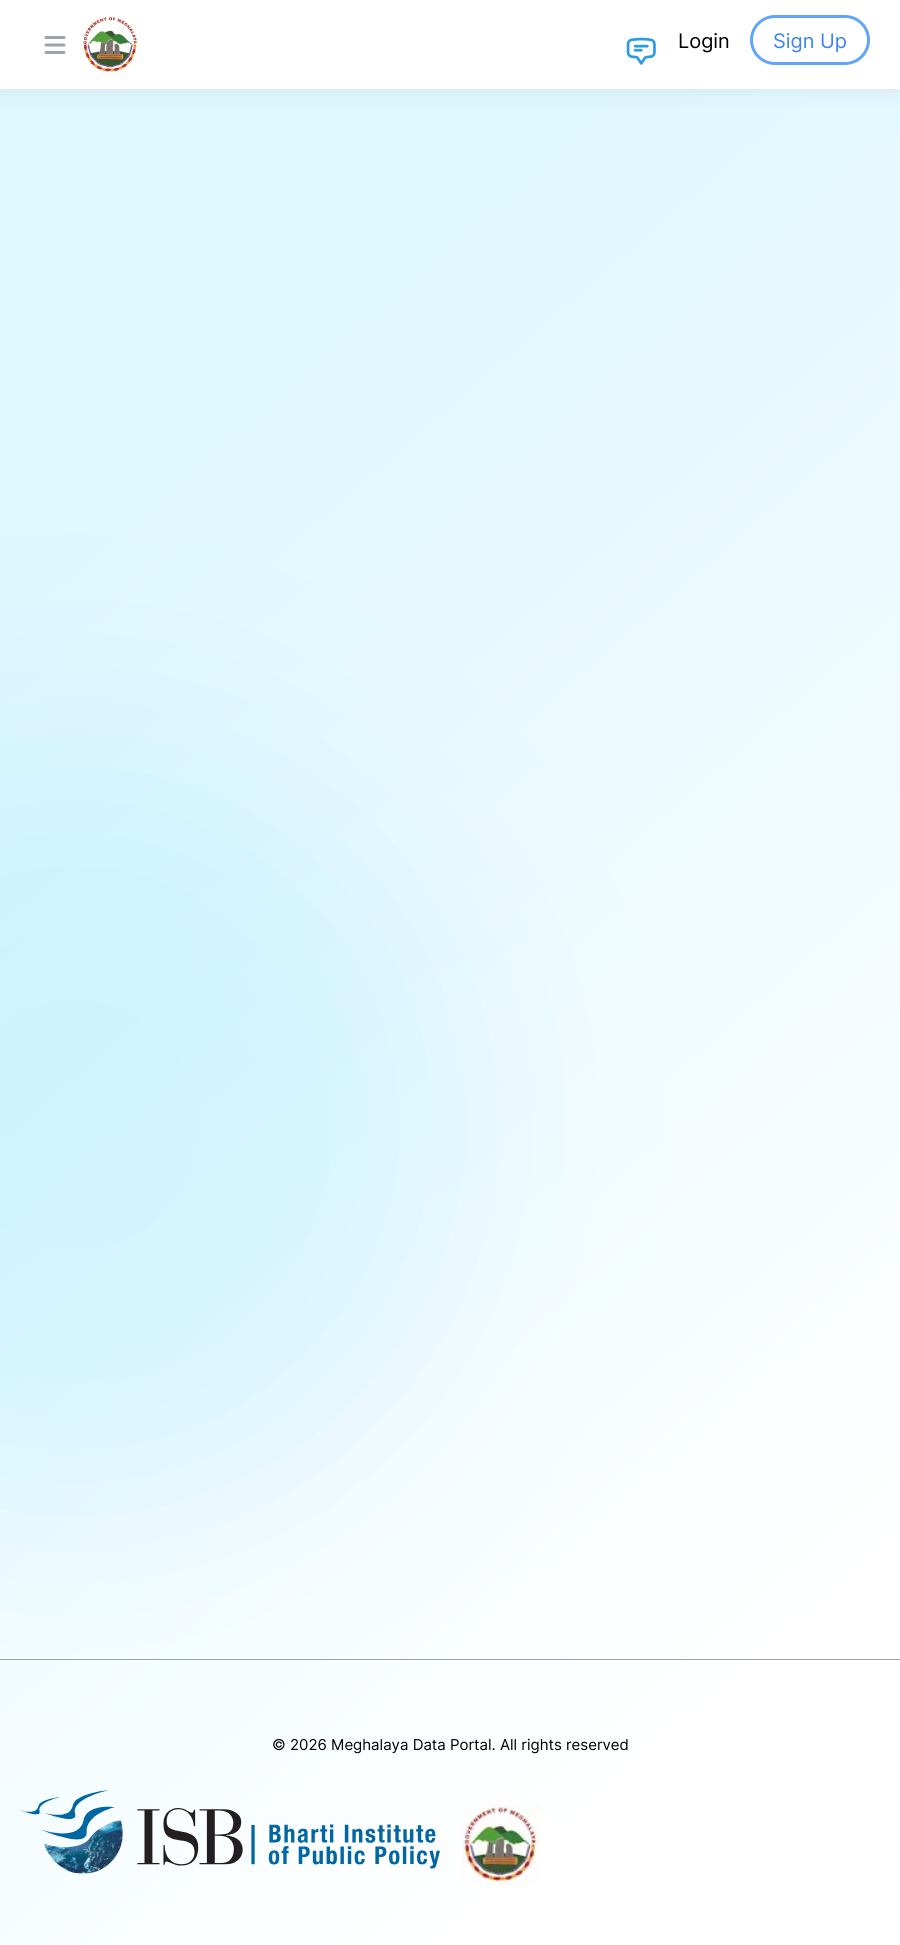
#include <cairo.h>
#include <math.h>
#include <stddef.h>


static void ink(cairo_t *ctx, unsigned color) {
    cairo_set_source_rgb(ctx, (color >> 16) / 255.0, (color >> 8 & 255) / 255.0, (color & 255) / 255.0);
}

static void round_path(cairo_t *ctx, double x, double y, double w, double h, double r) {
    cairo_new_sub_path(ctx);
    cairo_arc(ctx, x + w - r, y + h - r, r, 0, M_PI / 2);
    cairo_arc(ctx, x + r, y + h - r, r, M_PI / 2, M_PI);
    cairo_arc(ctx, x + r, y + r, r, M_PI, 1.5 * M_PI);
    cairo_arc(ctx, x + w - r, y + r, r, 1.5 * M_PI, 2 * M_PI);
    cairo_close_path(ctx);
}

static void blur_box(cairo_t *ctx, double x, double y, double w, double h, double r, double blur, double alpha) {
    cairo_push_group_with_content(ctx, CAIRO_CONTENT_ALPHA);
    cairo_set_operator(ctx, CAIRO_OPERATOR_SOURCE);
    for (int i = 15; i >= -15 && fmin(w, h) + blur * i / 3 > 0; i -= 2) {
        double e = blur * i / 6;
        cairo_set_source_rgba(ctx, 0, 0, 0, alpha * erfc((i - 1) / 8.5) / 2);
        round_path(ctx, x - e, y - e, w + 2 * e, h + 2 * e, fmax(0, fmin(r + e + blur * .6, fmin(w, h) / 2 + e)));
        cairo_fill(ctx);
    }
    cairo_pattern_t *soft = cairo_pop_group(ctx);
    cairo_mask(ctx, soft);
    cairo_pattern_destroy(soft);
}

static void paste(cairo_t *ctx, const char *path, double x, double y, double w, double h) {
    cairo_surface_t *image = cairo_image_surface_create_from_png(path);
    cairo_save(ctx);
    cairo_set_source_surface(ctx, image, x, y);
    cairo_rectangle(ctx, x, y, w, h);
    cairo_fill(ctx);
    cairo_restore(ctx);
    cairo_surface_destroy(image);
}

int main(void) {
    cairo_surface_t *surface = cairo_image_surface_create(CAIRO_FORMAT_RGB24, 900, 1945);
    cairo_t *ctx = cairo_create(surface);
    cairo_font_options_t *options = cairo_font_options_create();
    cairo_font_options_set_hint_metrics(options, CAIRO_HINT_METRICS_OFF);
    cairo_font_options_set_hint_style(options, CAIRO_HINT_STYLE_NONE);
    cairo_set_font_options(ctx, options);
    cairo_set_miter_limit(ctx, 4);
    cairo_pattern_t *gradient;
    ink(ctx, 0xFFFFFF);
    cairo_paint(ctx);
    gradient = cairo_pattern_create_linear(-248, 216, 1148, 1818);
    cairo_pattern_add_color_stop_rgba(gradient, 0.22, 0.875, 0.969, 1, 1);
    cairo_pattern_add_color_stop_rgba(gradient, 0.83, 1, 1, 1, 1);
    cairo_set_source(ctx, gradient);
    cairo_pattern_destroy(gradient);
    cairo_rectangle(ctx, 0, 89, 900, 1856);
    cairo_fill(ctx);
    ink(ctx, 0x000000);
    blur_box(ctx, 0, 5, 900, 89, 0, 9.5, 0.05);
    ink(ctx, 0xFFFFFF);
    cairo_rectangle(ctx, 0, 0, 900, 89);
    cairo_fill(ctx);
    paste(ctx, "media/1.png", 44, 36, 22, 18);
    paste(ctx, "media/2.png", 83, 17, 54, 55);
    paste(ctx, "media/3.png", 626, 37, 30, 28);
    cairo_select_font_face(ctx, "Inter", CAIRO_FONT_SLANT_NORMAL, CAIRO_FONT_WEIGHT_NORMAL);
    cairo_set_font_size(ctx, 20);
    ink(ctx, 0x000000);
    cairo_move_to(ctx, 678, 48);
    cairo_show_text(ctx, "Login");
    round_path(ctx, 751.5, 16.5, 117, 47, 23.5);
    ink(ctx, 0x60A5FA);
    cairo_set_line_width(ctx, 3);
    cairo_stroke(ctx);
    ink(ctx, 0x3B82F6);
    cairo_move_to(ctx, 773, 48);
    cairo_show_text(ctx, "Sign Up");
    ink(ctx, 0x6FD9FF);
    blur_box(ctx, -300, 750, 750, 750, 375, 100, 0.2);
    ink(ctx, 0x9CA3AF);
    cairo_rectangle(ctx, 0, 1659, 900, 1);
    cairo_fill(ctx);
    cairo_set_font_size(ctx, 15);
    ink(ctx, 0x000000);
    cairo_move_to(ctx, 272, 1750);
    cairo_show_text(ctx, "© 2026 Meghalaya Data Portal. All rights reserved");
    paste(ctx, "media/4.png", 20, 1790, 420, 84);
    paste(ctx, "media/5.png", 460, 1805, 80, 79);
    cairo_surface_write_to_png(surface, "image.png");
    cairo_font_options_destroy(options);
    cairo_destroy(ctx);
    cairo_surface_destroy(surface);
    return 0;
}
